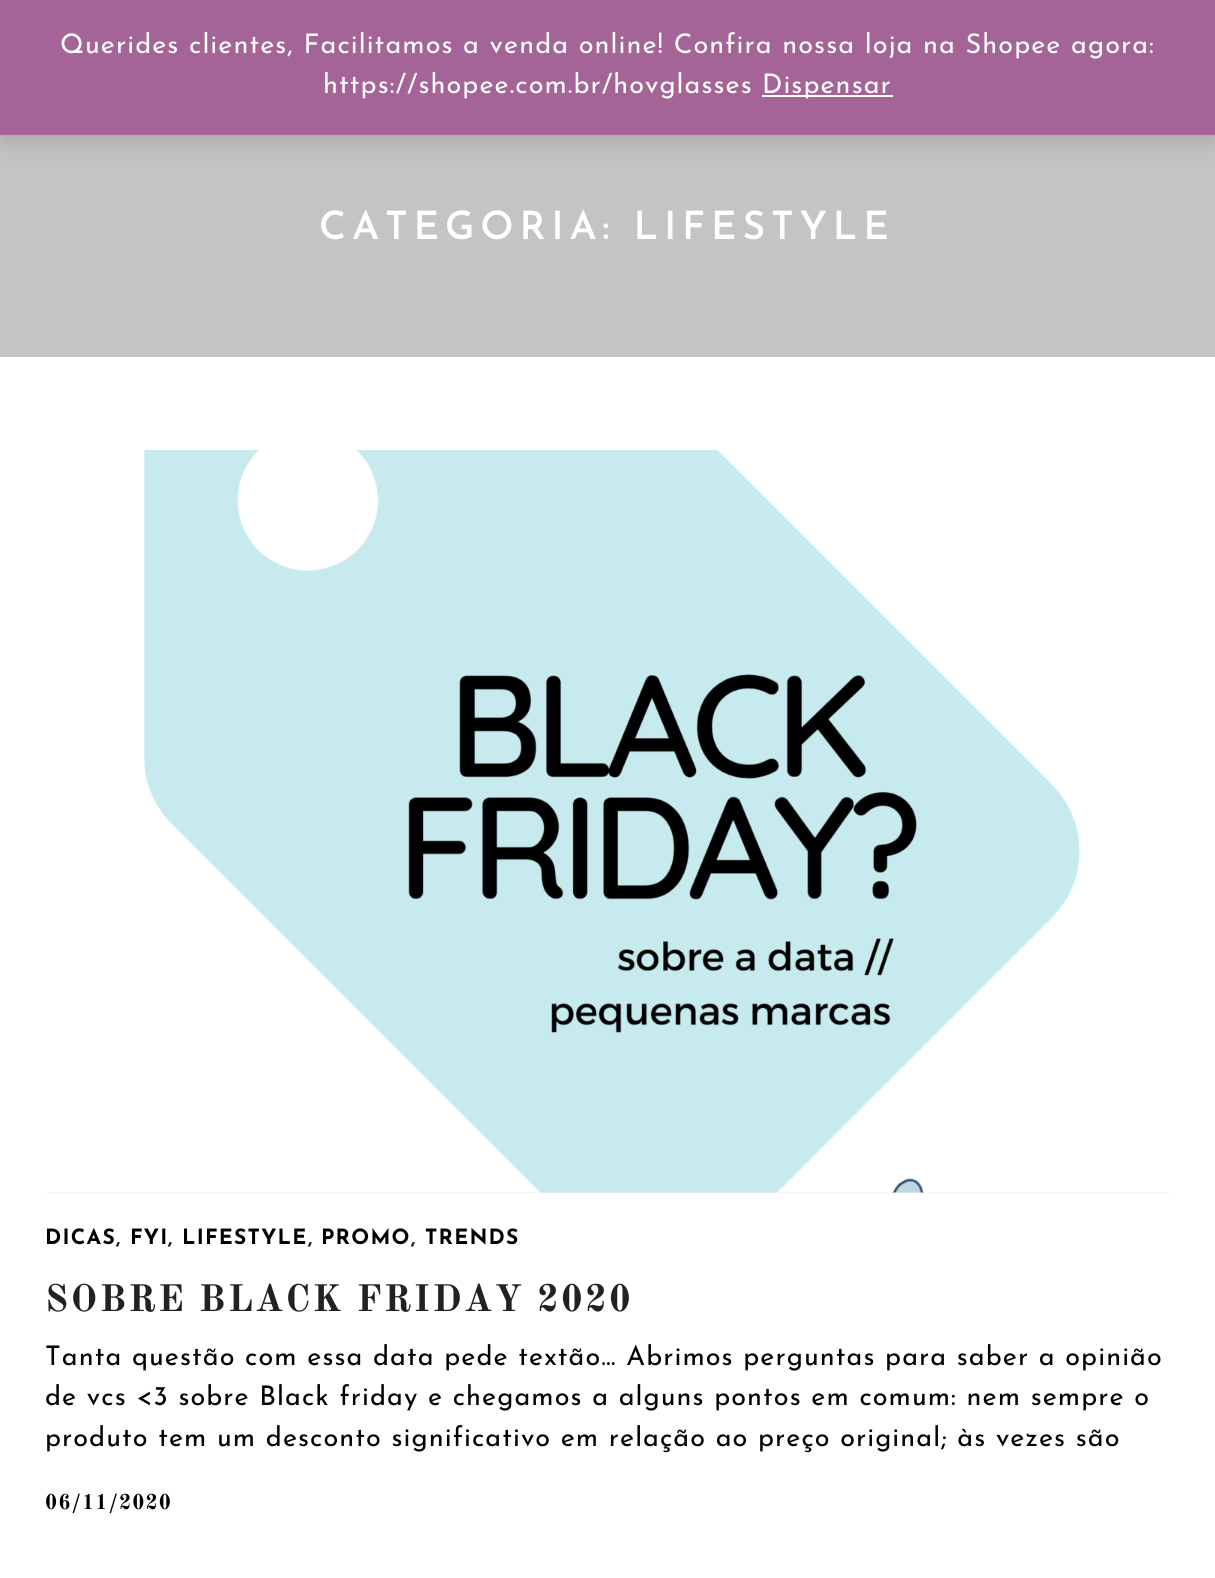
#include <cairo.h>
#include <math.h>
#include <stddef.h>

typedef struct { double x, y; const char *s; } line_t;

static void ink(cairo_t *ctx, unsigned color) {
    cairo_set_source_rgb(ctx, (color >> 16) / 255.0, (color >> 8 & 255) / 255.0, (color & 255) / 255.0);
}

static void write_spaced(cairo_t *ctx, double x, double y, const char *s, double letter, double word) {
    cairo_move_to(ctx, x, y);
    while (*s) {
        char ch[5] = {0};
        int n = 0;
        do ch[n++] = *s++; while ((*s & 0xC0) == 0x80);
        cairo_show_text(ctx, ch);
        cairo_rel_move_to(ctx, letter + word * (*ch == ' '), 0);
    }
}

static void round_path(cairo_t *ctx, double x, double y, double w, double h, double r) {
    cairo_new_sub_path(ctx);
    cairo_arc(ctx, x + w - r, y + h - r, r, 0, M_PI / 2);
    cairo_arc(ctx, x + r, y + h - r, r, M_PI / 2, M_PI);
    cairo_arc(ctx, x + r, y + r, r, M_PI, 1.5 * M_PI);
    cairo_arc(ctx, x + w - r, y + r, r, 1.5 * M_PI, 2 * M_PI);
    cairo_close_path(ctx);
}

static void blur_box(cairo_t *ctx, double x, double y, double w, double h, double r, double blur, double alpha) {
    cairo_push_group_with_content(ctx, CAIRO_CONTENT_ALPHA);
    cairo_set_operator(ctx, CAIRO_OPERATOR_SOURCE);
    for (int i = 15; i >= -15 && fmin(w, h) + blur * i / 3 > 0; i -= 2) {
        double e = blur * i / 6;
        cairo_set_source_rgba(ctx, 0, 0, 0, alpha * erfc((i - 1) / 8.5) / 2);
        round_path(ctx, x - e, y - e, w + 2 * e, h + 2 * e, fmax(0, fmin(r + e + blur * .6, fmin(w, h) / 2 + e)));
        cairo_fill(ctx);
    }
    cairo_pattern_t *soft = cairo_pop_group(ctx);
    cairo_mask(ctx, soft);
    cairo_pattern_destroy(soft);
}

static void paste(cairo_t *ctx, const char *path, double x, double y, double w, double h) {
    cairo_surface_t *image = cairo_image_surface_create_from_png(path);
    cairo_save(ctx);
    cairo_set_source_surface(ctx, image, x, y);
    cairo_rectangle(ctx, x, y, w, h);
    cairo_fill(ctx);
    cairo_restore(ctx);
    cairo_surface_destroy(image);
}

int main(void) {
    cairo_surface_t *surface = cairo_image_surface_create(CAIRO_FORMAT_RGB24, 1215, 1578);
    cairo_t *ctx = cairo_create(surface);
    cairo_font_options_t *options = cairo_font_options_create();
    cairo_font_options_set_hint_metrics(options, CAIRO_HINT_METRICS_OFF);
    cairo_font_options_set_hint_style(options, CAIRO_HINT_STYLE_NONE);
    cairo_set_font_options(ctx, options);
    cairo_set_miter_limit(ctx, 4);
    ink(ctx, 0xFFFFFF);
    cairo_paint(ctx);
    ink(ctx, 0xC4C4C4);
    cairo_rectangle(ctx, 0, 135, 1215, 222);
    cairo_fill(ctx);
    ink(ctx, 0x000000);
    blur_box(ctx, 0, 2, 1215, 135, 0, 13.5, 0.2);
    ink(ctx, 0xA46497);
    cairo_rectangle(ctx, 0, 0, 1215, 135);
    cairo_fill(ctx);
    cairo_select_font_face(ctx, "Josefin Sans", CAIRO_FONT_SLANT_NORMAL, CAIRO_FONT_WEIGHT_NORMAL);
    cairo_set_font_size(ctx, 27);
    ink(ctx, 0xFFFFFF);
    write_spaced(ctx, 60, 53, "Querides clientes, Facilitamos a venda online! Confira nossa loja na Shopee agora:", 1.08, 0);
    write_spaced(ctx, 323, 93, "https://shopee.com.br/hovglasses", 1.08, 0);
    cairo_rectangle(ctx, 762, 95, 131, 2);
    cairo_fill(ctx);
    write_spaced(ctx, 762, 93, "Dispensar", 1.08, 0);
    cairo_select_font_face(ctx, "Josefin Sans SemiBold", CAIRO_FONT_SLANT_NORMAL, CAIRO_FONT_WEIGHT_NORMAL);
    cairo_set_font_size(ctx, 39);
    write_spaced(ctx, 319, 239, "CATEGORIA: LIFESTYLE", 5.8, 0);
    ink(ctx, 0xEEEEEE);
    cairo_rectangle(ctx, 45, 1192, 1125, 1);
    cairo_fill(ctx);
    paste(ctx, "media/1.png", 45, 450, 1125, 743);
    cairo_select_font_face(ctx, "Josefin Sans", CAIRO_FONT_SLANT_NORMAL, CAIRO_FONT_WEIGHT_BOLD);
    cairo_set_font_size(ctx, 21);
    ink(ctx, 0x000000);
    write_spaced(ctx, 45, 1244, "DICAS", 1.25, 0);
    ink(ctx, 0x222222);
    write_spaced(ctx, 116, 1244, ",", 1.25, 0);
    ink(ctx, 0x000000);
    write_spaced(ctx, 130, 1244, "FYI", 1.25, 0);
    ink(ctx, 0x222222);
    write_spaced(ctx, 168, 1244, ",", 1.25, 0);
    ink(ctx, 0x000000);
    write_spaced(ctx, 182, 1244, "LIFESTYLE", 1.25, 0);
    ink(ctx, 0x222222);
    write_spaced(ctx, 308, 1244, ",", 1.25, 0);
    ink(ctx, 0x000000);
    write_spaced(ctx, 321, 1244, "PROMO", 1.25, 0);
    ink(ctx, 0x222222);
    write_spaced(ctx, 411, 1244, ",", 1.25, 0);
    ink(ctx, 0x000000);
    write_spaced(ctx, 425, 1244, "TRENDS", 1.25, 0);
    cairo_select_font_face(ctx, "Old Standard TT", CAIRO_FONT_SLANT_NORMAL, CAIRO_FONT_WEIGHT_BOLD);
    cairo_set_font_size(ctx, 37.5);
    ink(ctx, 0x222222);
    write_spaced(ctx, 45, 1311, "SOBRE BLACK FRIDAY 2020", 2.25, 0);
    cairo_select_font_face(ctx, "Josefin Sans", CAIRO_FONT_SLANT_NORMAL, CAIRO_FONT_WEIGHT_NORMAL);
    cairo_set_font_size(ctx, 27);
    ink(ctx, 0x000000);
    {
        static const line_t items[] = {
            {45, 1365, "Tanta questão com essa data pede textão… Abrimos perguntas para saber a opinião"},
            {45, 1405, "de vcs <3 sobre Black friday e chegamos a alguns pontos em comum: nem sempre o"},
            {45, 1446, "produto tem um desconto significativo em relação ao preço original; às vezes são"},
        };
        for (size_t i = 0; i < sizeof items / sizeof *items; i++) {
            write_spaced(ctx, items[i].x, items[i].y, items[i].s, 1.08, 0);
        }
    }
    cairo_select_font_face(ctx, "Old Standard TT", CAIRO_FONT_SLANT_NORMAL, CAIRO_FONT_WEIGHT_BOLD);
    cairo_set_font_size(ctx, 21);
    write_spaced(ctx, 45, 1509, "06/11/2020", 1.08, 0);
    cairo_surface_write_to_png(surface, "image.png");
    cairo_font_options_destroy(options);
    cairo_destroy(ctx);
    cairo_surface_destroy(surface);
    return 0;
}
